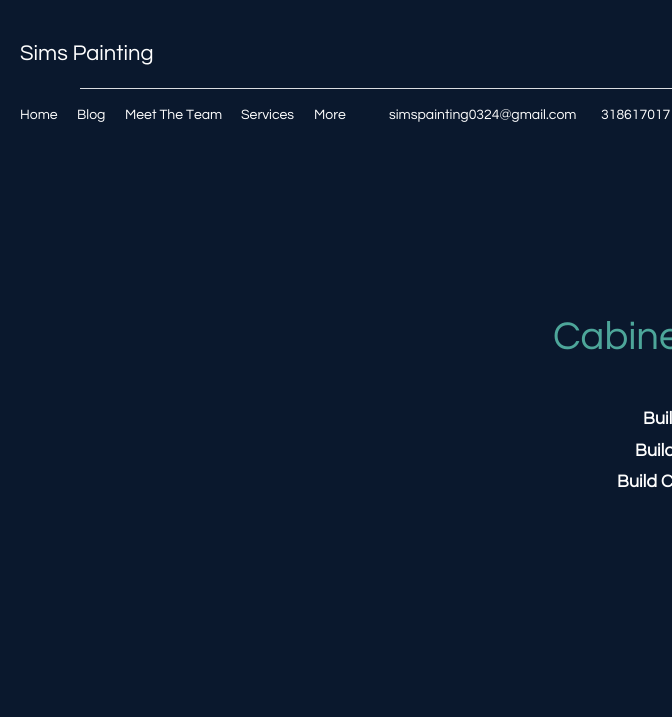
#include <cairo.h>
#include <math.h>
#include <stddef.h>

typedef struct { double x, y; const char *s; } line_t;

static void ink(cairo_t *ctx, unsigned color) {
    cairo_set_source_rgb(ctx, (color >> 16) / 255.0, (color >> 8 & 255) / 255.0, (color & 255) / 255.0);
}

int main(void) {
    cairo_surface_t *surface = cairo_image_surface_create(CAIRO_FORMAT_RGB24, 672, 717);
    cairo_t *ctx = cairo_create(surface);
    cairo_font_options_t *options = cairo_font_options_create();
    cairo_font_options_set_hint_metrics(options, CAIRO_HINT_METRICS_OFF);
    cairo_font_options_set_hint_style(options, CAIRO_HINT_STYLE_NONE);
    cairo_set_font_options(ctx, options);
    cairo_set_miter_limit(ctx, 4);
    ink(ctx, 0x0A182D);
    cairo_paint(ctx);
    cairo_select_font_face(ctx, "Questrial", CAIRO_FONT_SLANT_NORMAL, CAIRO_FONT_WEIGHT_NORMAL);
    cairo_set_font_size(ctx, 22);
    ink(ctx, 0xFFFFFF);
    cairo_move_to(ctx, 20, 60);
    cairo_show_text(ctx, "Sims Painting");
    ink(ctx, 0xDADCE0);
    cairo_rectangle(ctx, 80, 88, 592, 1);
    cairo_fill(ctx);
    cairo_set_font_size(ctx, 14);
    ink(ctx, 0xFFFFFF);
    {
        static const line_t items[] = {
            {20, 119, "Home"},
            {77, 119, "Blog"},
            {125, 119, "Meet The Team"},
            {241, 119, "Services"},
            {314, 119, "More"},
            {389, 119, "simspainting0324@gmail.com"},
            {601, 119, "318617017"},
        };
        for (size_t i = 0; i < sizeof items / sizeof *items; i++) {
            cairo_move_to(ctx, items[i].x, items[i].y);
            cairo_show_text(ctx, items[i].s);
        }
    }
    cairo_set_font_size(ctx, 40);
    ink(ctx, 0x4DA69A);
    cairo_move_to(ctx, 553, 349);
    cairo_show_text(ctx, "Cabine");
    cairo_select_font_face(ctx, "Questrial", CAIRO_FONT_SLANT_NORMAL, CAIRO_FONT_WEIGHT_BOLD);
    cairo_set_font_size(ctx, 18);
    ink(ctx, 0xFFFFFF);
    {
        static const line_t items[] = {
            {643, 424, "Buil"},
            {635, 456, "Build"},
            {617, 487, "Build C"},
        };
        for (size_t i = 0; i < sizeof items / sizeof *items; i++) {
            cairo_move_to(ctx, items[i].x, items[i].y);
            cairo_show_text(ctx, items[i].s);
        }
    }
    cairo_surface_write_to_png(surface, "image.png");
    cairo_font_options_destroy(options);
    cairo_destroy(ctx);
    cairo_surface_destroy(surface);
    return 0;
}
